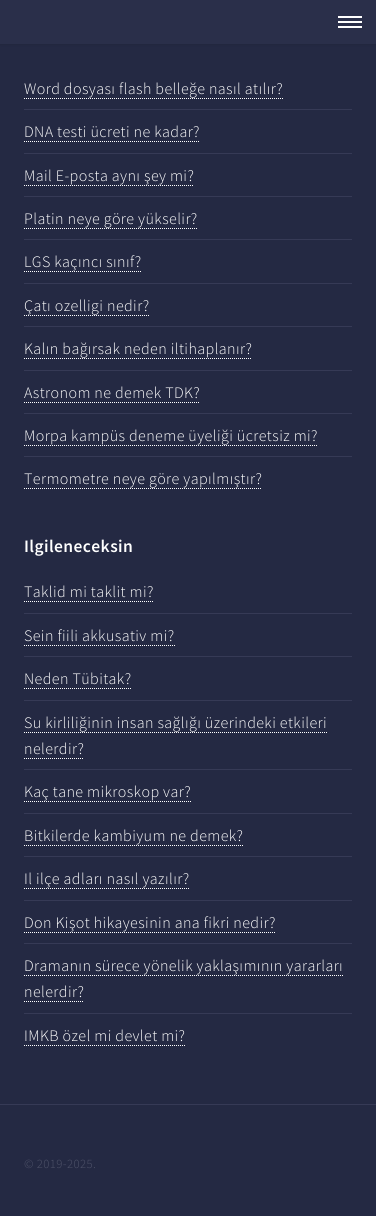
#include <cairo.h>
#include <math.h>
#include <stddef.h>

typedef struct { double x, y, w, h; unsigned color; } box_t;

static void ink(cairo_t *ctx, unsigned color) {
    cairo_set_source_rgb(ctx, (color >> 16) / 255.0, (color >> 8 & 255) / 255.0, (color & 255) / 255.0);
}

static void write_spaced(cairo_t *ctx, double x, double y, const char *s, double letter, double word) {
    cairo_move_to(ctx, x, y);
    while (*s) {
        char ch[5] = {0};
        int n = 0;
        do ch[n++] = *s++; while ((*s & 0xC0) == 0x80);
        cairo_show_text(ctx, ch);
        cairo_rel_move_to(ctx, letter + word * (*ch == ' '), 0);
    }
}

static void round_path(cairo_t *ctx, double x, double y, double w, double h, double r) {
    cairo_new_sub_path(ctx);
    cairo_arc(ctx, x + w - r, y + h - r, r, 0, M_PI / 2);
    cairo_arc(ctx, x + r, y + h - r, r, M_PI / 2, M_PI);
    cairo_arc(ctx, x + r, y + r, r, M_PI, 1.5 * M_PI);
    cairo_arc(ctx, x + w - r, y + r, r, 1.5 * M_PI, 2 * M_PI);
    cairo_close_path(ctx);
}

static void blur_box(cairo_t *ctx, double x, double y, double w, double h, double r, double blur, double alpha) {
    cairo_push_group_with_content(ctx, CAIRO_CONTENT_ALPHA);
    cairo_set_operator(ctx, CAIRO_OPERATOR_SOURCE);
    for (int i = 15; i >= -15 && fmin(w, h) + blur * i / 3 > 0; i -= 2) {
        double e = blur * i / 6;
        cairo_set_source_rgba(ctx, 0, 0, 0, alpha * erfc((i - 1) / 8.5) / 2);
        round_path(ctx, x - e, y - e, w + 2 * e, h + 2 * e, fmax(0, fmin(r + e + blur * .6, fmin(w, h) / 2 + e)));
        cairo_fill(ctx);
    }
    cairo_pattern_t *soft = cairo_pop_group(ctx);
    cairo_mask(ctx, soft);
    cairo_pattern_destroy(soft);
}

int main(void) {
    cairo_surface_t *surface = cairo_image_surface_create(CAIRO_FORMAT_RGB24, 376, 1216);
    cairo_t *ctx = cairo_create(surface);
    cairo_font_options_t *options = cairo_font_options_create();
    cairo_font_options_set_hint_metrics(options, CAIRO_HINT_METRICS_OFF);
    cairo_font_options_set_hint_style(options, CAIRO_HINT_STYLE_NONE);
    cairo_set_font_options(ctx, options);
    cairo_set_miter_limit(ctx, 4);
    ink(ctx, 0x242943);
    cairo_paint(ctx);
    ink(ctx, 0x000000);
    blur_box(ctx, 0, 0, 376, 44, 0, 2, 0.15);
    {
        static const box_t items[] = {
            {0, 0, 376, 44, 0x2A2F4A},
            {338, 16, 24, 2, 0xFFFFFF},
            {338, 26, 24, 2, 0xFFFFFF},
            {338, 21, 24, 2, 0xFFFFFF},
            {0, 1104, 376, 1, 0x363A56},
        };
        for (size_t i = 0; i < sizeof items / sizeof *items; i++) {
            ink(ctx, items[i].color);
            cairo_rectangle(ctx, items[i].x, items[i].y, items[i].w, items[i].h);
            cairo_fill(ctx);
        }
    }
    cairo_select_font_face(ctx, "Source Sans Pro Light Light", CAIRO_FONT_SLANT_NORMAL, CAIRO_FONT_WEIGHT_NORMAL);
    cairo_set_font_size(ctx, 16);
    ink(ctx, 0xFFFFFF);
    write_spaced(ctx, 24, 94, "Word dosyası flash belleğe nasıl atılır?", 0.4, 0);
    cairo_new_path(ctx);
    cairo_move_to(ctx, 24, 98.5);
    cairo_line_to(ctx, 283, 98.5);
    cairo_set_line_width(ctx, 1);
    cairo_set_dash(ctx, (double[]){1, 1}, 2, 0);
    cairo_stroke(ctx);
    ink(ctx, 0x363A56);
    cairo_rectangle(ctx, 24, 109, 328, 1);
    cairo_fill(ctx);
    ink(ctx, 0xFFFFFF);
    write_spaced(ctx, 24, 137, "DNA testi ücreti ne kadar?", 0.4, 0);
    cairo_new_path(ctx);
    cairo_move_to(ctx, 24, 141.5);
    cairo_line_to(ctx, 200, 141.5);
    cairo_stroke(ctx);
    ink(ctx, 0x363A56);
    cairo_rectangle(ctx, 24, 153, 328, 1);
    cairo_fill(ctx);
    ink(ctx, 0xFFFFFF);
    write_spaced(ctx, 24, 181, "Mail E-posta aynı şey mi?", 0.4, 0);
    cairo_new_path(ctx);
    cairo_move_to(ctx, 24, 185.5);
    cairo_line_to(ctx, 194, 185.5);
    cairo_stroke(ctx);
    ink(ctx, 0x363A56);
    cairo_rectangle(ctx, 24, 196, 328, 1);
    cairo_fill(ctx);
    ink(ctx, 0xFFFFFF);
    write_spaced(ctx, 24, 224, "Platin neye göre yükselir?", 0.4, 0);
    cairo_new_path(ctx);
    cairo_move_to(ctx, 24, 228.5);
    cairo_line_to(ctx, 198, 228.5);
    cairo_stroke(ctx);
    ink(ctx, 0x363A56);
    cairo_rectangle(ctx, 24, 239, 328, 1);
    cairo_fill(ctx);
    ink(ctx, 0xFFFFFF);
    write_spaced(ctx, 24, 267, "LGS kaçıncı sınıf?", 0.4, 0);
    cairo_new_path(ctx);
    cairo_move_to(ctx, 24, 271.5);
    cairo_line_to(ctx, 142, 271.5);
    cairo_stroke(ctx);
    ink(ctx, 0x363A56);
    cairo_rectangle(ctx, 24, 283, 328, 1);
    cairo_fill(ctx);
    ink(ctx, 0xFFFFFF);
    write_spaced(ctx, 24, 311, "Çatı ozelligi nedir?", 0.4, 0);
    cairo_new_path(ctx);
    cairo_move_to(ctx, 24, 315.5);
    cairo_line_to(ctx, 150, 315.5);
    cairo_stroke(ctx);
    ink(ctx, 0x363A56);
    cairo_rectangle(ctx, 24, 326, 328, 1);
    cairo_fill(ctx);
    ink(ctx, 0xFFFFFF);
    write_spaced(ctx, 24, 354, "Kalın bağırsak neden iltihaplanır?", 0.4, 0);
    cairo_new_path(ctx);
    cairo_move_to(ctx, 24, 358.5);
    cairo_line_to(ctx, 252, 358.5);
    cairo_stroke(ctx);
    ink(ctx, 0x363A56);
    cairo_rectangle(ctx, 24, 370, 328, 1);
    cairo_fill(ctx);
    ink(ctx, 0xFFFFFF);
    write_spaced(ctx, 24, 398, "Astronom ne demek TDK?", 0.4, 0);
    cairo_new_path(ctx);
    cairo_move_to(ctx, 24, 402.5);
    cairo_line_to(ctx, 200, 402.5);
    cairo_stroke(ctx);
    ink(ctx, 0x363A56);
    cairo_rectangle(ctx, 24, 413, 328, 1);
    cairo_fill(ctx);
    ink(ctx, 0xFFFFFF);
    write_spaced(ctx, 24, 441, "Morpa kampüs deneme üyeliği ücretsiz mi?", 0.4, 0);
    cairo_new_path(ctx);
    cairo_move_to(ctx, 24, 445.5);
    cairo_line_to(ctx, 318, 445.5);
    cairo_stroke(ctx);
    ink(ctx, 0x363A56);
    cairo_rectangle(ctx, 24, 456, 328, 1);
    cairo_fill(ctx);
    ink(ctx, 0xFFFFFF);
    write_spaced(ctx, 24, 484, "Termometre neye göre yapılmıştır?", 0.4, 0);
    cairo_new_path(ctx);
    cairo_move_to(ctx, 24, 488.5);
    cairo_line_to(ctx, 262, 488.5);
    cairo_stroke(ctx);
    cairo_select_font_face(ctx, "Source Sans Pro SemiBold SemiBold", CAIRO_FONT_SLANT_NORMAL, CAIRO_FONT_WEIGHT_NORMAL);
    cairo_set_font_size(ctx, 17.5);
    write_spaced(ctx, 24, 552, "Ilgileneceksin", 0.4, 0);
    cairo_select_font_face(ctx, "Source Sans Pro Light Light", CAIRO_FONT_SLANT_NORMAL, CAIRO_FONT_WEIGHT_NORMAL);
    cairo_set_font_size(ctx, 16);
    write_spaced(ctx, 24, 597, "Taklid mi taklit mi?", 0.4, 0);
    cairo_new_path(ctx);
    cairo_move_to(ctx, 24, 601.5);
    cairo_line_to(ctx, 154, 601.5);
    cairo_stroke(ctx);
    ink(ctx, 0x363A56);
    cairo_rectangle(ctx, 24, 613, 328, 1);
    cairo_fill(ctx);
    ink(ctx, 0xFFFFFF);
    write_spaced(ctx, 24, 641, "Sein fiili akkusativ mi?", 0.4, 0);
    cairo_new_path(ctx);
    cairo_move_to(ctx, 24, 645.5);
    cairo_line_to(ctx, 175, 645.5);
    cairo_stroke(ctx);
    ink(ctx, 0x363A56);
    cairo_rectangle(ctx, 24, 656, 328, 1);
    cairo_fill(ctx);
    ink(ctx, 0xFFFFFF);
    write_spaced(ctx, 24, 684, "Neden Tübitak?", 0.4, 0);
    cairo_new_path(ctx);
    cairo_move_to(ctx, 24, 688.5);
    cairo_line_to(ctx, 132, 688.5);
    cairo_stroke(ctx);
    ink(ctx, 0x363A56);
    cairo_rectangle(ctx, 24, 700, 328, 1);
    cairo_fill(ctx);
    ink(ctx, 0xFFFFFF);
    write_spaced(ctx, 24, 728, "Su kirliliğinin insan sağlığı üzerindeki etkileri", 0.4, 0);
    cairo_new_path(ctx);
    cairo_move_to(ctx, 24, 732.5);
    cairo_line_to(ctx, 327, 732.5);
    cairo_stroke(ctx);
    write_spaced(ctx, 24, 754, "nelerdir?", 0.4, 0);
    cairo_new_path(ctx);
    cairo_move_to(ctx, 24, 758.5);
    cairo_line_to(ctx, 84, 758.5);
    cairo_stroke(ctx);
    ink(ctx, 0x363A56);
    cairo_rectangle(ctx, 24, 769, 328, 1);
    cairo_fill(ctx);
    ink(ctx, 0xFFFFFF);
    write_spaced(ctx, 24, 797, "Kaç tane mikroskop var?", 0.4, 0);
    cairo_new_path(ctx);
    cairo_move_to(ctx, 24, 801.5);
    cairo_line_to(ctx, 191, 801.5);
    cairo_stroke(ctx);
    ink(ctx, 0x363A56);
    cairo_rectangle(ctx, 24, 813, 328, 1);
    cairo_fill(ctx);
    ink(ctx, 0xFFFFFF);
    write_spaced(ctx, 24, 841, "Bitkilerde kambiyum ne demek?", 0.4, 0);
    cairo_new_path(ctx);
    cairo_move_to(ctx, 24, 845.5);
    cairo_line_to(ctx, 244, 845.5);
    cairo_stroke(ctx);
    ink(ctx, 0x363A56);
    cairo_rectangle(ctx, 24, 856, 328, 1);
    cairo_fill(ctx);
    ink(ctx, 0xFFFFFF);
    write_spaced(ctx, 24, 884, "Il ilçe adları nasıl yazılır?", 0.4, 0);
    cairo_new_path(ctx);
    cairo_move_to(ctx, 24, 888.5);
    cairo_line_to(ctx, 190, 888.5);
    cairo_stroke(ctx);
    ink(ctx, 0x363A56);
    cairo_rectangle(ctx, 24, 900, 328, 1);
    cairo_fill(ctx);
    ink(ctx, 0xFFFFFF);
    write_spaced(ctx, 24, 928, "Don Kişot hikayesinin ana fikri nedir?", 0.4, 0);
    cairo_new_path(ctx);
    cairo_move_to(ctx, 24, 932.5);
    cairo_line_to(ctx, 276, 932.5);
    cairo_stroke(ctx);
    ink(ctx, 0x363A56);
    cairo_rectangle(ctx, 24, 943, 328, 1);
    cairo_fill(ctx);
    ink(ctx, 0xFFFFFF);
    write_spaced(ctx, 24, 971, "Dramanın sürece yönelik yaklaşımının yararları", 0.4, 0);
    cairo_new_path(ctx);
    cairo_move_to(ctx, 24, 975.5);
    cairo_line_to(ctx, 343, 975.5);
    cairo_stroke(ctx);
    write_spaced(ctx, 24, 997, "nelerdir?", 0.4, 0);
    cairo_new_path(ctx);
    cairo_move_to(ctx, 24, 1001.5);
    cairo_line_to(ctx, 84, 1001.5);
    cairo_stroke(ctx);
    ink(ctx, 0x363A56);
    cairo_rectangle(ctx, 24, 1013, 328, 1);
    cairo_fill(ctx);
    ink(ctx, 0xFFFFFF);
    write_spaced(ctx, 24, 1041, "IMKB özel mi devlet mi?", 0.4, 0);
    cairo_new_path(ctx);
    cairo_move_to(ctx, 24, 1045.5);
    cairo_line_to(ctx, 186, 1045.5);
    cairo_stroke(ctx);
    cairo_set_font_size(ctx, 12.75);
    ink(ctx, 0x4E5269);
    write_spaced(ctx, 24, 1168, "© 2019-2025.", 0.4, 0);
    cairo_surface_write_to_png(surface, "image.png");
    cairo_font_options_destroy(options);
    cairo_destroy(ctx);
    cairo_surface_destroy(surface);
    return 0;
}
